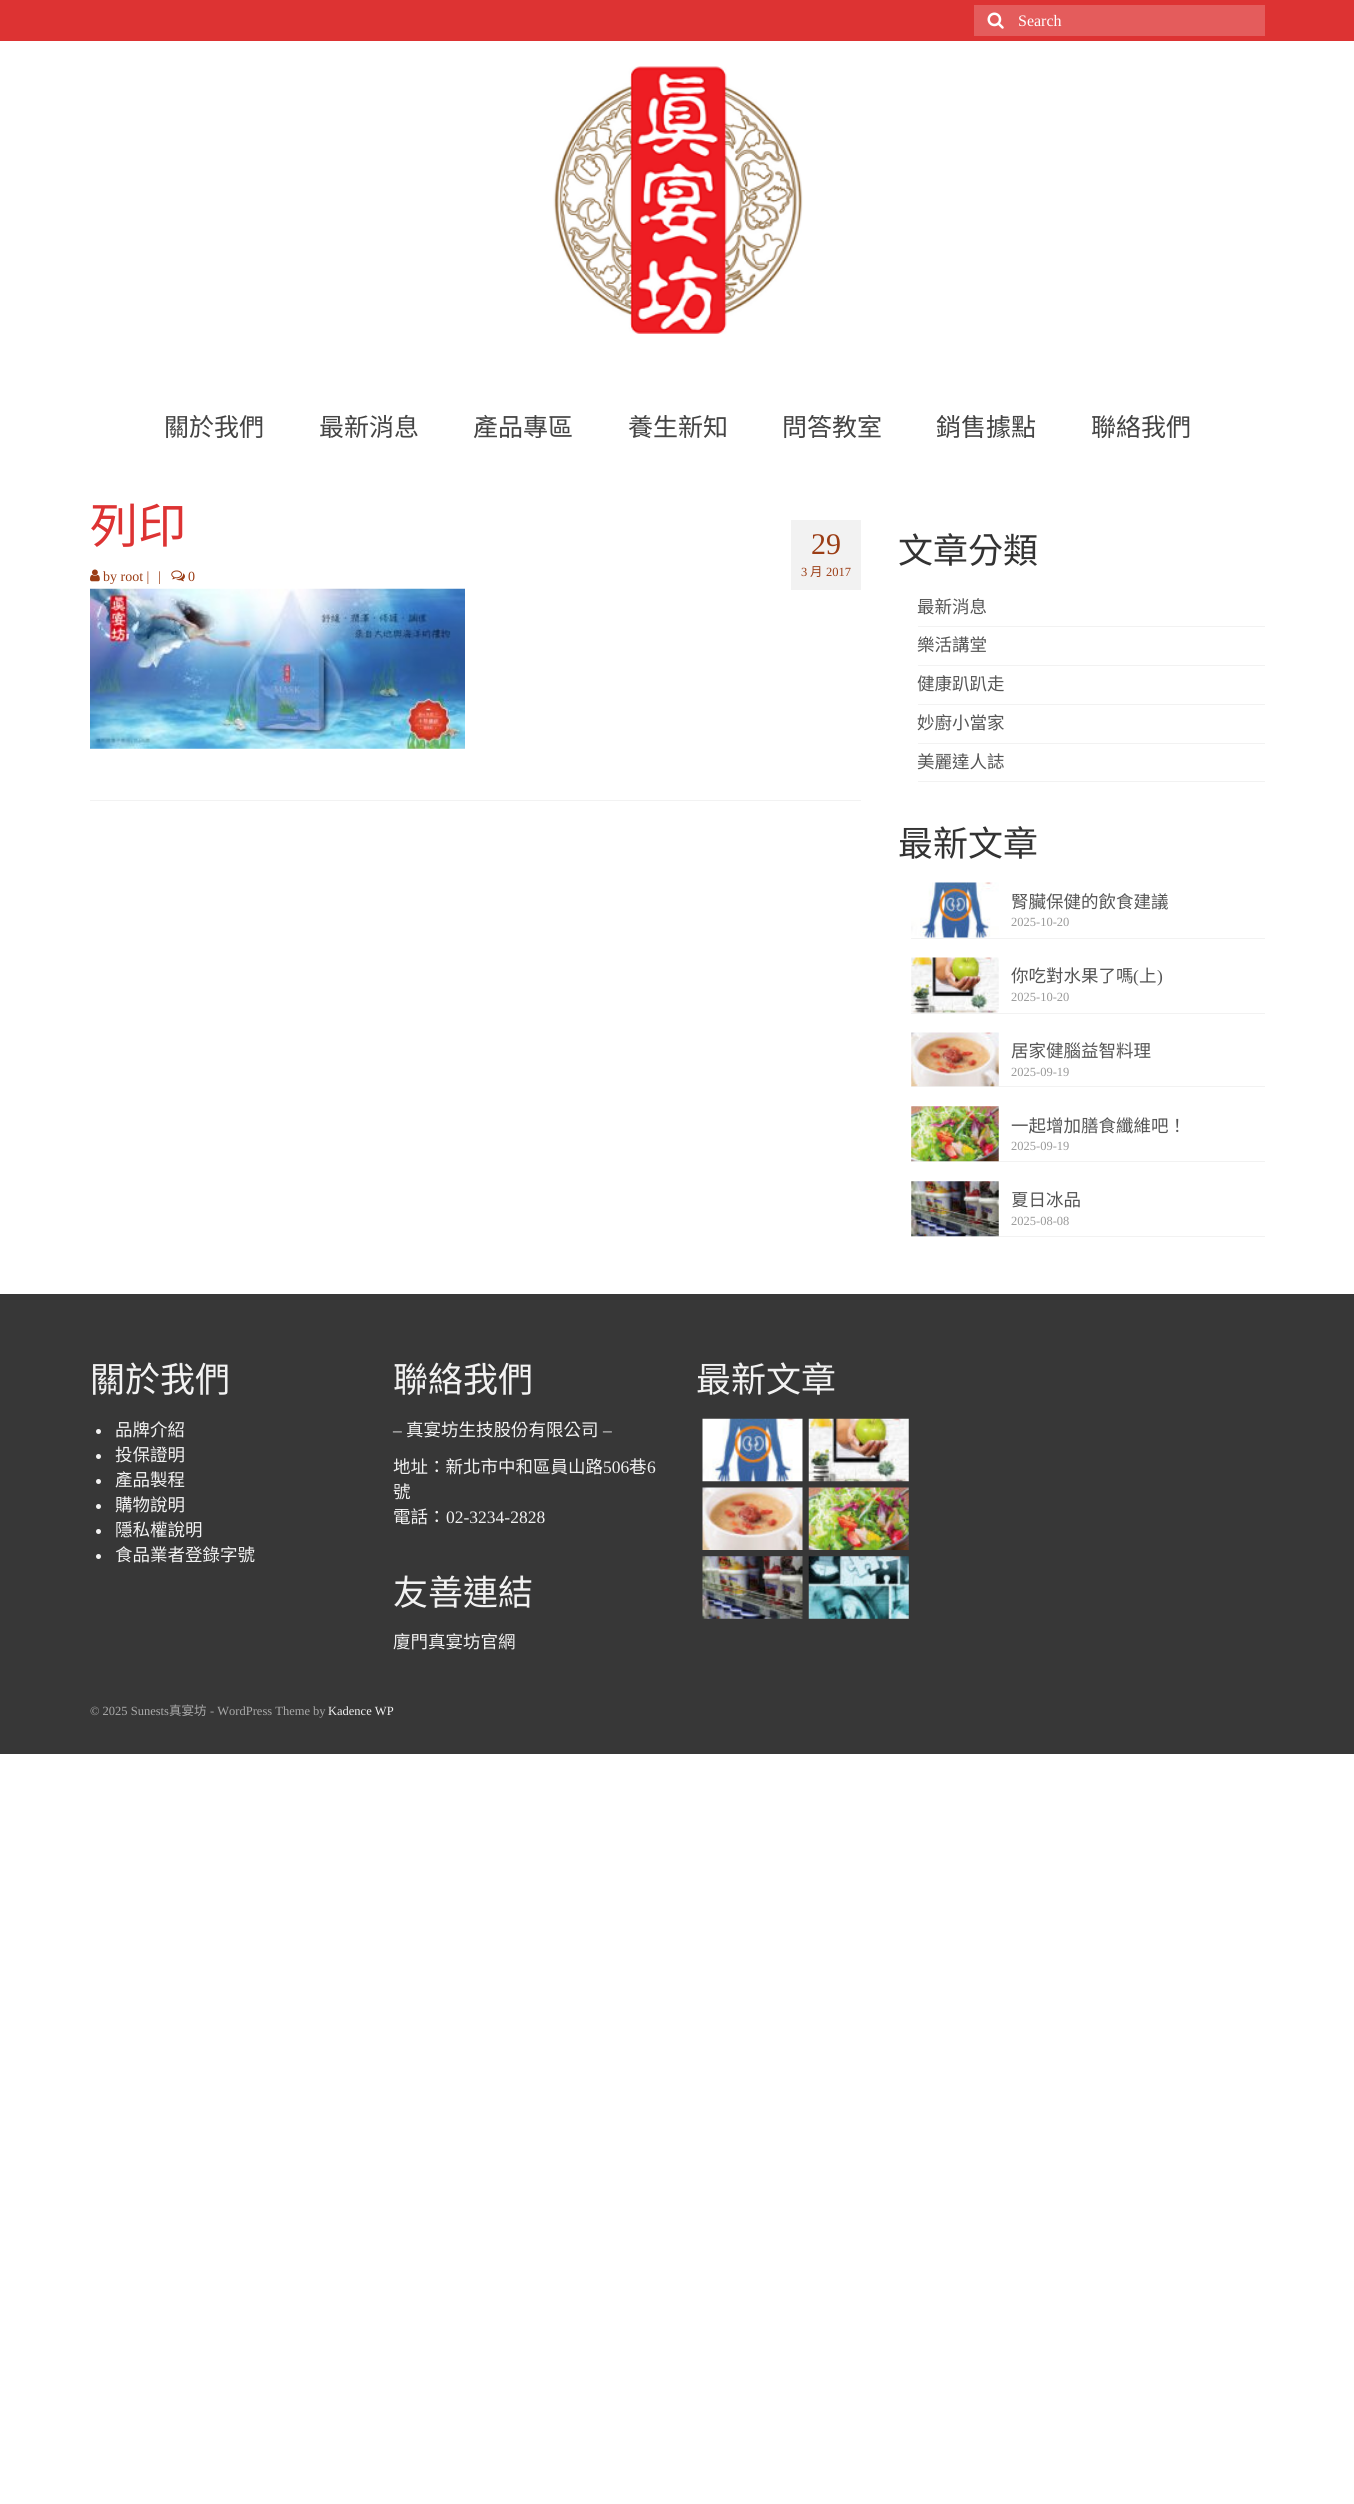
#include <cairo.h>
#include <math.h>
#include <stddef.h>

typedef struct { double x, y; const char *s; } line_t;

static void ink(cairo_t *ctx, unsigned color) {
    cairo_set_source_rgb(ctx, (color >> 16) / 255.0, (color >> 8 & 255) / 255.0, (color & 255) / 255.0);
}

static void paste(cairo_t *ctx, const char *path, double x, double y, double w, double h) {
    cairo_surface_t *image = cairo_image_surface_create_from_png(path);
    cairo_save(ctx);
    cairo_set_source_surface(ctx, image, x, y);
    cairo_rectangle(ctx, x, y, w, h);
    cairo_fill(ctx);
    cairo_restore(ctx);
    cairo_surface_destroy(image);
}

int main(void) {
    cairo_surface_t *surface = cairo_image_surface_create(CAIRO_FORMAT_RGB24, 1354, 2504);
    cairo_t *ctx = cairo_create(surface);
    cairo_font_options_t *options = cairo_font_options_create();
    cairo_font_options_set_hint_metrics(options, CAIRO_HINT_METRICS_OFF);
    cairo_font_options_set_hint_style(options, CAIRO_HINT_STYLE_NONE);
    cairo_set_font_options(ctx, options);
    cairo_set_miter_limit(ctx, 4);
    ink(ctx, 0xFFFFFF);
    cairo_paint(ctx);
    ink(ctx, 0xDD3333);
    cairo_rectangle(ctx, 0, 0, 1354, 41);
    cairo_fill(ctx);
    ink(ctx, 0xE45C5C);
    cairo_rectangle(ctx, 974, 5, 291, 31);
    cairo_fill(ctx);
    paste(ctx, "media/1.png", 987, 12, 17, 17);
    cairo_select_font_face(ctx, "Liberation Serif", CAIRO_FONT_SLANT_NORMAL, CAIRO_FONT_WEIGHT_NORMAL);
    cairo_set_font_size(ctx, 16);
    ink(ctx, 0xFFFFFF);
    cairo_move_to(ctx, 1018, 26);
    cairo_show_text(ctx, "Search");
    paste(ctx, "media/2.png", 553, 66, 250, 268);
    cairo_select_font_face(ctx, "Noto Sans CJK TC", CAIRO_FONT_SLANT_NORMAL, CAIRO_FONT_WEIGHT_NORMAL);
    cairo_set_font_size(ctx, 25);
    ink(ctx, 0x444444);
    {
        static const line_t items[] = {
            {164, 436, "關於我們"},
            {319, 436, "最新消息"},
            {473, 436, "產品專區"},
            {628, 436, "養生新知"},
            {782, 436, "問答教室"},
            {936, 436, "銷售據點"},
            {1091, 436, "聯絡我們"},
        };
        for (size_t i = 0; i < sizeof items / sizeof *items; i++) {
            cairo_move_to(ctx, items[i].x, items[i].y);
            cairo_show_text(ctx, items[i].s);
        }
    }
    cairo_set_font_size(ctx, 48);
    ink(ctx, 0xDD3333);
    cairo_move_to(ctx, 90, 543);
    cairo_show_text(ctx, "列印");
    paste(ctx, "media/3.png", 90, 569, 10, 13);
    cairo_select_font_face(ctx, "Liberation Serif", CAIRO_FONT_SLANT_NORMAL, CAIRO_FONT_WEIGHT_NORMAL);
    cairo_set_font_size(ctx, 14);
    ink(ctx, 0x9B3D15);
    cairo_move_to(ctx, 103, 581);
    cairo_show_text(ctx, "by root |");
    cairo_move_to(ctx, 158, 581);
    cairo_show_text(ctx, "|");
    paste(ctx, "media/4.png", 171, 570, 14, 12);
    cairo_move_to(ctx, 188, 581);
    cairo_show_text(ctx, "0");
    ink(ctx, 0xF2F2F2);
    cairo_rectangle(ctx, 791, 520, 70, 70);
    cairo_fill(ctx);
    cairo_set_font_size(ctx, 30);
    ink(ctx, 0x9B3D15);
    cairo_move_to(ctx, 811, 554);
    cairo_show_text(ctx, "29");
    cairo_set_font_size(ctx, 12.5);
    cairo_move_to(ctx, 801, 576);
    cairo_show_text(ctx, "3");
    cairo_select_font_face(ctx, "Noto Sans CJK TC", CAIRO_FONT_SLANT_NORMAL, CAIRO_FONT_WEIGHT_NORMAL);
    cairo_move_to(ctx, 810, 576);
    cairo_show_text(ctx, "月");
    cairo_select_font_face(ctx, "Liberation Serif", CAIRO_FONT_SLANT_NORMAL, CAIRO_FONT_WEIGHT_NORMAL);
    cairo_move_to(ctx, 826, 576);
    cairo_show_text(ctx, "2017");
    paste(ctx, "media/5.png", 90, 588, 375, 161);
    ink(ctx, 0xF2F2F2);
    cairo_rectangle(ctx, 90, 800, 771, 1);
    cairo_fill(ctx);
    cairo_select_font_face(ctx, "Noto Sans CJK TC", CAIRO_FONT_SLANT_NORMAL, CAIRO_FONT_WEIGHT_NORMAL);
    cairo_set_font_size(ctx, 35);
    ink(ctx, 0x333333);
    cairo_move_to(ctx, 898, 563);
    cairo_show_text(ctx, "文章分類");
    ink(ctx, 0xF2F2F2);
    cairo_rectangle(ctx, 918, 626, 347, 1);
    cairo_fill(ctx);
    cairo_set_font_size(ctx, 17.5);
    ink(ctx, 0x555555);
    cairo_move_to(ctx, 917, 613);
    cairo_show_text(ctx, "最新消息");
    ink(ctx, 0xF2F2F2);
    cairo_rectangle(ctx, 918, 665, 347, 1);
    cairo_fill(ctx);
    ink(ctx, 0x555555);
    cairo_move_to(ctx, 917, 651);
    cairo_show_text(ctx, "樂活講堂");
    ink(ctx, 0xF2F2F2);
    cairo_rectangle(ctx, 918, 704, 347, 1);
    cairo_fill(ctx);
    ink(ctx, 0x555555);
    cairo_move_to(ctx, 917, 690);
    cairo_show_text(ctx, "健康趴趴走");
    ink(ctx, 0xF2F2F2);
    cairo_rectangle(ctx, 918, 743, 347, 1);
    cairo_fill(ctx);
    ink(ctx, 0x555555);
    cairo_move_to(ctx, 917, 729);
    cairo_show_text(ctx, "妙廚小當家");
    ink(ctx, 0xF2F2F2);
    cairo_rectangle(ctx, 918, 781, 347, 1);
    cairo_fill(ctx);
    ink(ctx, 0x555555);
    cairo_move_to(ctx, 917, 768);
    cairo_show_text(ctx, "美麗達人誌");
    cairo_set_font_size(ctx, 35);
    ink(ctx, 0x333333);
    cairo_move_to(ctx, 898, 856);
    cairo_show_text(ctx, "最新文章");
    ink(ctx, 0xF2F2F2);
    cairo_rectangle(ctx, 911, 938, 354, 1);
    cairo_fill(ctx);
    paste(ctx, "media/6.png", 911, 882, 88, 56);
    cairo_set_font_size(ctx, 17.5);
    ink(ctx, 0x555555);
    cairo_move_to(ctx, 1011, 908);
    cairo_show_text(ctx, "腎臟保健的飲食建議");
    cairo_select_font_face(ctx, "Liberation Serif", CAIRO_FONT_SLANT_NORMAL, CAIRO_FONT_WEIGHT_NORMAL);
    cairo_set_font_size(ctx, 12.5);
    ink(ctx, 0x999999);
    cairo_move_to(ctx, 1011, 926);
    cairo_show_text(ctx, "2025-10-20");
    ink(ctx, 0xF2F2F2);
    cairo_rectangle(ctx, 911, 1013, 354, 1);
    cairo_fill(ctx);
    paste(ctx, "media/7.png", 911, 957, 88, 56);
    cairo_select_font_face(ctx, "Noto Sans CJK TC", CAIRO_FONT_SLANT_NORMAL, CAIRO_FONT_WEIGHT_NORMAL);
    cairo_set_font_size(ctx, 17.5);
    ink(ctx, 0x555555);
    cairo_move_to(ctx, 1011, 982);
    cairo_show_text(ctx, "你吃對水果了嗎");
    cairo_select_font_face(ctx, "Liberation Serif", CAIRO_FONT_SLANT_NORMAL, CAIRO_FONT_WEIGHT_NORMAL);
    cairo_move_to(ctx, 1133, 982);
    cairo_show_text(ctx, "(");
    cairo_select_font_face(ctx, "Noto Sans CJK TC", CAIRO_FONT_SLANT_NORMAL, CAIRO_FONT_WEIGHT_NORMAL);
    cairo_move_to(ctx, 1139, 982);
    cairo_show_text(ctx, "上");
    cairo_select_font_face(ctx, "Liberation Serif", CAIRO_FONT_SLANT_NORMAL, CAIRO_FONT_WEIGHT_NORMAL);
    cairo_move_to(ctx, 1157, 982);
    cairo_show_text(ctx, ")");
    cairo_set_font_size(ctx, 12.5);
    ink(ctx, 0x999999);
    cairo_move_to(ctx, 1011, 1001);
    cairo_show_text(ctx, "2025-10-20");
    ink(ctx, 0xF2F2F2);
    cairo_rectangle(ctx, 911, 1086, 354, 1);
    cairo_fill(ctx);
    paste(ctx, "media/8.png", 911, 1032, 88, 55);
    cairo_select_font_face(ctx, "Noto Sans CJK TC", CAIRO_FONT_SLANT_NORMAL, CAIRO_FONT_WEIGHT_NORMAL);
    cairo_set_font_size(ctx, 17.5);
    ink(ctx, 0x555555);
    cairo_move_to(ctx, 1011, 1057);
    cairo_show_text(ctx, "居家健腦益智料理");
    cairo_select_font_face(ctx, "Liberation Serif", CAIRO_FONT_SLANT_NORMAL, CAIRO_FONT_WEIGHT_NORMAL);
    cairo_set_font_size(ctx, 12.5);
    ink(ctx, 0x999999);
    cairo_move_to(ctx, 1011, 1076);
    cairo_show_text(ctx, "2025-09-19");
    ink(ctx, 0xF2F2F2);
    cairo_rectangle(ctx, 911, 1161, 354, 1);
    cairo_fill(ctx);
    paste(ctx, "media/9.png", 911, 1106, 88, 56);
    cairo_select_font_face(ctx, "Noto Sans CJK TC", CAIRO_FONT_SLANT_NORMAL, CAIRO_FONT_WEIGHT_NORMAL);
    cairo_set_font_size(ctx, 17.5);
    ink(ctx, 0x555555);
    cairo_move_to(ctx, 1011, 1132);
    cairo_show_text(ctx, "一起增加膳食纖維吧！");
    cairo_select_font_face(ctx, "Liberation Serif", CAIRO_FONT_SLANT_NORMAL, CAIRO_FONT_WEIGHT_NORMAL);
    cairo_set_font_size(ctx, 12.5);
    ink(ctx, 0x999999);
    cairo_move_to(ctx, 1011, 1150);
    cairo_show_text(ctx, "2025-09-19");
    ink(ctx, 0xF2F2F2);
    cairo_rectangle(ctx, 911, 1236, 354, 1);
    cairo_fill(ctx);
    paste(ctx, "media/10.png", 911, 1181, 88, 56);
    cairo_select_font_face(ctx, "Noto Sans CJK TC", CAIRO_FONT_SLANT_NORMAL, CAIRO_FONT_WEIGHT_NORMAL);
    cairo_set_font_size(ctx, 17.5);
    ink(ctx, 0x555555);
    cairo_move_to(ctx, 1011, 1206);
    cairo_show_text(ctx, "夏日冰品");
    cairo_select_font_face(ctx, "Liberation Serif", CAIRO_FONT_SLANT_NORMAL, CAIRO_FONT_WEIGHT_NORMAL);
    cairo_set_font_size(ctx, 12.5);
    ink(ctx, 0x999999);
    cairo_move_to(ctx, 1011, 1225);
    cairo_show_text(ctx, "2025-08-08");
    ink(ctx, 0x373737);
    cairo_rectangle(ctx, 0, 1294, 1354, 460);
    cairo_fill(ctx);
    cairo_select_font_face(ctx, "Noto Sans CJK TC", CAIRO_FONT_SLANT_NORMAL, CAIRO_FONT_WEIGHT_NORMAL);
    cairo_set_font_size(ctx, 35);
    ink(ctx, 0xF2F2F2);
    cairo_move_to(ctx, 90, 1392);
    cairo_show_text(ctx, "關於我們");
    cairo_new_path(ctx);
    cairo_arc(ctx, 98.5, 1431.5, 2.5, 0, 2 * M_PI);
    cairo_fill(ctx);
    cairo_set_font_size(ctx, 17.5);
    cairo_move_to(ctx, 115, 1436);
    cairo_show_text(ctx, "品牌介紹");
    cairo_new_path(ctx);
    cairo_arc(ctx, 98.5, 1456.5, 2.5, 0, 2 * M_PI);
    cairo_fill(ctx);
    cairo_move_to(ctx, 115, 1461);
    cairo_show_text(ctx, "投保證明");
    cairo_new_path(ctx);
    cairo_arc(ctx, 98.5, 1481.5, 2.5, 0, 2 * M_PI);
    cairo_fill(ctx);
    cairo_move_to(ctx, 115, 1486);
    cairo_show_text(ctx, "產品製程");
    cairo_new_path(ctx);
    cairo_arc(ctx, 98.5, 1506.5, 2.5, 0, 2 * M_PI);
    cairo_fill(ctx);
    cairo_move_to(ctx, 115, 1511);
    cairo_show_text(ctx, "購物說明");
    cairo_new_path(ctx);
    cairo_arc(ctx, 98.5, 1531.5, 2.5, 0, 2 * M_PI);
    cairo_fill(ctx);
    cairo_move_to(ctx, 115, 1536);
    cairo_show_text(ctx, "隱私權說明");
    cairo_new_path(ctx);
    cairo_arc(ctx, 98.5, 1556.5, 2.5, 0, 2 * M_PI);
    cairo_fill(ctx);
    cairo_move_to(ctx, 115, 1561);
    cairo_show_text(ctx, "食品業者登錄字號");
    cairo_set_font_size(ctx, 35);
    cairo_move_to(ctx, 393, 1392);
    cairo_show_text(ctx, "聯絡我們");
    cairo_select_font_face(ctx, "Liberation Serif", CAIRO_FONT_SLANT_NORMAL, CAIRO_FONT_WEIGHT_NORMAL);
    cairo_set_font_size(ctx, 17.5);
    cairo_move_to(ctx, 393, 1436);
    cairo_show_text(ctx, "–");
    cairo_select_font_face(ctx, "Noto Sans CJK TC", CAIRO_FONT_SLANT_NORMAL, CAIRO_FONT_WEIGHT_NORMAL);
    cairo_move_to(ctx, 406, 1436);
    cairo_show_text(ctx, "真宴坊生技股份有限公司");
    cairo_select_font_face(ctx, "Liberation Serif", CAIRO_FONT_SLANT_NORMAL, CAIRO_FONT_WEIGHT_NORMAL);
    cairo_move_to(ctx, 603, 1436);
    cairo_show_text(ctx, "–");
    cairo_select_font_face(ctx, "Noto Sans CJK TC", CAIRO_FONT_SLANT_NORMAL, CAIRO_FONT_WEIGHT_NORMAL);
    cairo_move_to(ctx, 393, 1473);
    cairo_show_text(ctx, "地址：新北市中和區員山路");
    cairo_select_font_face(ctx, "Liberation Serif", CAIRO_FONT_SLANT_NORMAL, CAIRO_FONT_WEIGHT_NORMAL);
    cairo_move_to(ctx, 603, 1473);
    cairo_show_text(ctx, "506");
    cairo_select_font_face(ctx, "Noto Sans CJK TC", CAIRO_FONT_SLANT_NORMAL, CAIRO_FONT_WEIGHT_NORMAL);
    cairo_move_to(ctx, 629, 1473);
    cairo_show_text(ctx, "巷");
    cairo_select_font_face(ctx, "Liberation Serif", CAIRO_FONT_SLANT_NORMAL, CAIRO_FONT_WEIGHT_NORMAL);
    cairo_move_to(ctx, 647, 1473);
    cairo_show_text(ctx, "6");
    cairo_select_font_face(ctx, "Noto Sans CJK TC", CAIRO_FONT_SLANT_NORMAL, CAIRO_FONT_WEIGHT_NORMAL);
    cairo_move_to(ctx, 393, 1498);
    cairo_show_text(ctx, "號");
    cairo_move_to(ctx, 393, 1523);
    cairo_show_text(ctx, "電話：");
    cairo_select_font_face(ctx, "Liberation Serif", CAIRO_FONT_SLANT_NORMAL, CAIRO_FONT_WEIGHT_NORMAL);
    cairo_move_to(ctx, 446, 1523);
    cairo_show_text(ctx, "02-3234-2828");
    cairo_select_font_face(ctx, "Noto Sans CJK TC", CAIRO_FONT_SLANT_NORMAL, CAIRO_FONT_WEIGHT_NORMAL);
    cairo_set_font_size(ctx, 35);
    cairo_move_to(ctx, 393, 1605);
    cairo_show_text(ctx, "友善連結");
    cairo_set_font_size(ctx, 17.5);
    cairo_move_to(ctx, 393, 1648);
    cairo_show_text(ctx, "廈門真宴坊官網");
    cairo_set_font_size(ctx, 35);
    cairo_move_to(ctx, 696, 1392);
    cairo_show_text(ctx, "最新文章");
    paste(ctx, "media/11.png", 702, 1418, 101, 64);
    paste(ctx, "media/12.png", 808, 1418, 101, 64);
    paste(ctx, "media/13.png", 702, 1487, 101, 63);
    paste(ctx, "media/14.png", 808, 1487, 101, 63);
    paste(ctx, "media/15.png", 702, 1556, 101, 63);
    paste(ctx, "media/16.png", 808, 1556, 101, 63);
    cairo_select_font_face(ctx, "Liberation Serif", CAIRO_FONT_SLANT_NORMAL, CAIRO_FONT_WEIGHT_NORMAL);
    cairo_set_font_size(ctx, 12.5);
    ink(ctx, 0xAAAAAA);
    cairo_move_to(ctx, 90, 1715);
    cairo_show_text(ctx, "© 2025 Sunests");
    cairo_select_font_face(ctx, "Noto Sans CJK TC", CAIRO_FONT_SLANT_NORMAL, CAIRO_FONT_WEIGHT_NORMAL);
    cairo_move_to(ctx, 169, 1715);
    cairo_show_text(ctx, "真宴坊");
    cairo_select_font_face(ctx, "Liberation Serif", CAIRO_FONT_SLANT_NORMAL, CAIRO_FONT_WEIGHT_NORMAL);
    cairo_move_to(ctx, 210, 1715);
    cairo_show_text(ctx, "- WordPress Theme by");
    ink(ctx, 0xF2F2F2);
    cairo_move_to(ctx, 328, 1715);
    cairo_show_text(ctx, "Kadence WP");
    cairo_surface_write_to_png(surface, "image.png");
    cairo_font_options_destroy(options);
    cairo_destroy(ctx);
    cairo_surface_destroy(surface);
    return 0;
}
